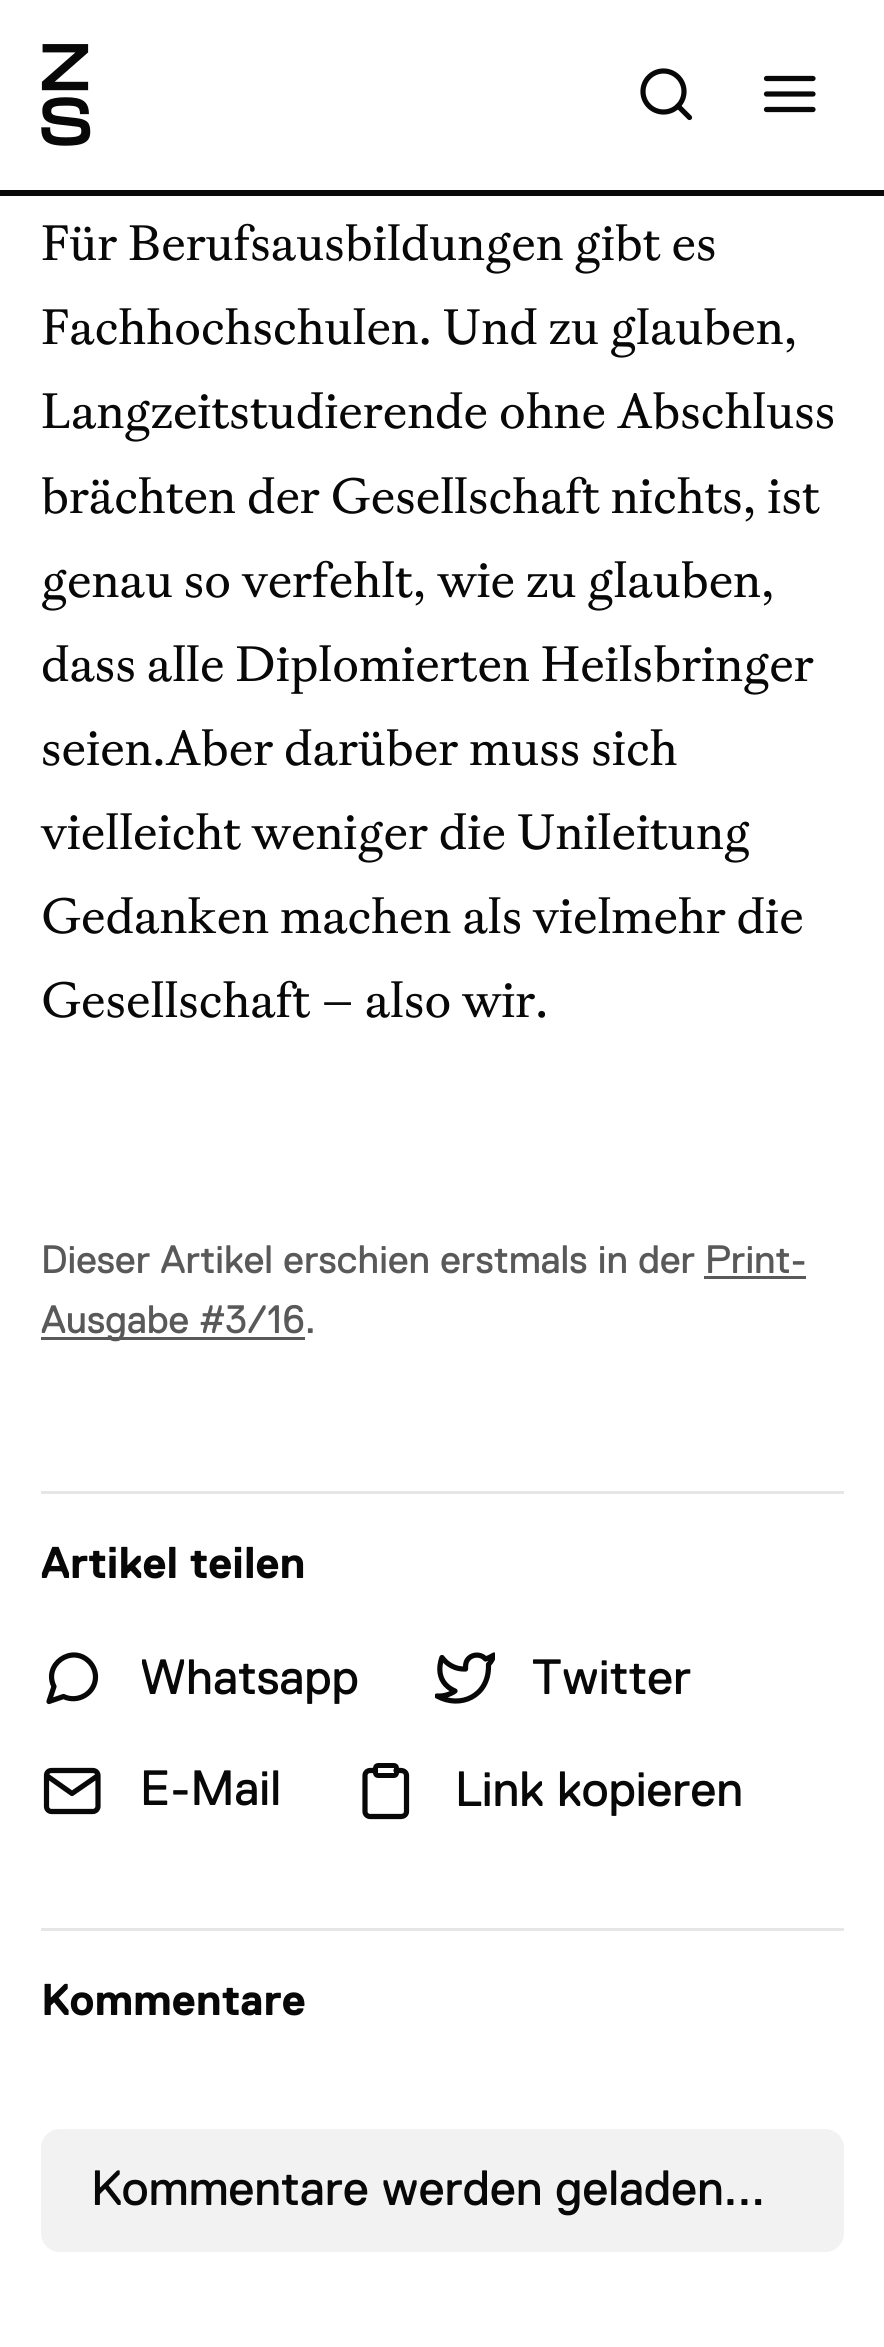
#include <cairo.h>
#include <math.h>
#include <stddef.h>

typedef struct { double x, y; const char *s; } line_t;

static void ink(cairo_t *ctx, unsigned color) {
    cairo_set_source_rgb(ctx, (color >> 16) / 255.0, (color >> 8 & 255) / 255.0, (color & 255) / 255.0);
}

static void round_path(cairo_t *ctx, double x, double y, double w, double h, double r) {
    cairo_new_sub_path(ctx);
    cairo_arc(ctx, x + w - r, y + h - r, r, 0, M_PI / 2);
    cairo_arc(ctx, x + r, y + h - r, r, M_PI / 2, M_PI);
    cairo_arc(ctx, x + r, y + r, r, M_PI, 1.5 * M_PI);
    cairo_arc(ctx, x + w - r, y + r, r, 1.5 * M_PI, 2 * M_PI);
    cairo_close_path(ctx);
}

static void paste(cairo_t *ctx, const char *path, double x, double y, double w, double h) {
    cairo_surface_t *image = cairo_image_surface_create_from_png(path);
    cairo_save(ctx);
    cairo_set_source_surface(ctx, image, x, y);
    cairo_rectangle(ctx, x, y, w, h);
    cairo_fill(ctx);
    cairo_restore(ctx);
    cairo_surface_destroy(image);
}

int main(void) {
    cairo_surface_t *surface = cairo_image_surface_create(CAIRO_FORMAT_RGB24, 884, 2347);
    cairo_t *ctx = cairo_create(surface);
    cairo_font_options_t *options = cairo_font_options_create();
    cairo_font_options_set_hint_metrics(options, CAIRO_HINT_METRICS_OFF);
    cairo_font_options_set_hint_style(options, CAIRO_HINT_STYLE_NONE);
    cairo_set_font_options(ctx, options);
    cairo_set_miter_limit(ctx, 4);
    ink(ctx, 0xFFFFFF);
    cairo_paint(ctx);
    paste(ctx, "media/1.png", 41, 44, 50, 102);
    cairo_arc(ctx, 663.5, 91.5, 20.5, 0, 2 * M_PI);
    ink(ctx, 0x080808);
    cairo_set_line_width(ctx, 5.2);
    cairo_stroke(ctx);
    cairo_new_path(ctx);
    cairo_move_to(ctx, 689.5, 117.5);
    cairo_line_to(ctx, 678, 106);
    cairo_set_line_cap(ctx, CAIRO_LINE_CAP_ROUND);
    cairo_set_line_join(ctx, CAIRO_LINE_JOIN_ROUND);
    cairo_stroke(ctx);
    cairo_new_path(ctx);
    cairo_move_to(ctx, 766.5, 94);
    cairo_line_to(ctx, 813, 94);
    cairo_move_to(ctx, 766.5, 78.5);
    cairo_line_to(ctx, 813, 78.5);
    cairo_move_to(ctx, 766.5, 109.5);
    cairo_line_to(ctx, 813, 109.5);
    cairo_stroke(ctx);
    cairo_rectangle(ctx, 0, 190, 884, 6);
    cairo_fill(ctx);
    cairo_select_font_face(ctx, "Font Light", CAIRO_FONT_SLANT_NORMAL, CAIRO_FONT_WEIGHT_NORMAL);
    cairo_set_font_size(ctx, 49.5);
    {
        static const line_t items[] = {
            {41, 260, "Für Berufsausbildungen gibt es"},
            {41, 344, "Fachhochschulen. Und zu glauben,"},
            {41, 428, "Langzeitstudierende ohne Abschluss"},
            {41, 513, "brächten der Gesellschaft nichts, ist"},
            {41, 597, "genau so verfehlt, wie zu glauben,"},
            {41, 681, "dass alle Diplomierten Heilsbringer"},
            {41, 765, "seien.Aber darüber muss sich"},
            {41, 849, "vielleicht weniger die Unileitung"},
            {41, 933, "Gedanken machen als vielmehr die"},
            {41, 1017, "Gesellschaft – also wir."},
        };
        for (size_t i = 0; i < sizeof items / sizeof *items; i++) {
            cairo_move_to(ctx, items[i].x, items[i].y);
            cairo_show_text(ctx, items[i].s);
        }
    }
    cairo_select_font_face(ctx, "Font", CAIRO_FONT_SLANT_NORMAL, CAIRO_FONT_WEIGHT_NORMAL);
    cairo_set_font_size(ctx, 39.6);
    ink(ctx, 0x595959);
    cairo_move_to(ctx, 41, 1273);
    cairo_show_text(ctx, "Dieser Artikel erschien erstmals in der");
    cairo_move_to(ctx, 705, 1273);
    cairo_show_text(ctx, "Print-");
    cairo_rectangle(ctx, 704, 1276, 102, 3);
    cairo_fill(ctx);
    cairo_rectangle(ctx, 41, 1337, 264, 3);
    cairo_fill(ctx);
    cairo_move_to(ctx, 41, 1333);
    cairo_show_text(ctx, "Ausgabe #3/16.");
    ink(ctx, 0xE6E6E6);
    cairo_rectangle(ctx, 41, 1491, 803, 3);
    cairo_fill(ctx);
    cairo_select_font_face(ctx, "Font", CAIRO_FONT_SLANT_NORMAL, CAIRO_FONT_WEIGHT_BOLD);
    cairo_set_font_size(ctx, 44.5);
    ink(ctx, 0x080808);
    cairo_move_to(ctx, 41, 1578);
    cairo_show_text(ctx, "Artikel teilen");
    cairo_new_path(ctx);
    cairo_move_to(ctx, 95.5, 1677);
    cairo_curve_to(ctx, 95.5, 1693, 78, 1703.5, 63.5, 1696.5);
    cairo_line_to(ctx, 49, 1701.5);
    cairo_line_to(ctx, 54, 1686.5);
    cairo_curve_to(ctx, 43, 1665, 71.5, 1644, 89, 1661.5);
    cairo_curve_to(ctx, 93, 1665.5, 95.5, 1671, 95.5, 1677);
    cairo_close_path(ctx);
    cairo_stroke(ctx);
    cairo_select_font_face(ctx, "Font", CAIRO_FONT_SLANT_NORMAL, CAIRO_FONT_WEIGHT_NORMAL);
    cairo_set_font_size(ctx, 49.5);
    cairo_move_to(ctx, 140, 1694);
    cairo_show_text(ctx, "Whatsapp");
    cairo_save(ctx);
    cairo_rectangle(ctx, 435, 1647, 60, 64);
    cairo_clip(ctx);
    cairo_new_path(ctx);
    cairo_move_to(ctx, 494, 1655);
    cairo_curve_to(ctx, 491.5, 1656.5, 488.5, 1658, 485.5, 1659);
    cairo_curve_to(ctx, 480.5, 1653, 470, 1654, 466.5, 1661.5);
    cairo_curve_to(ctx, 465.5, 1664, 465.5, 1666.5, 465.5, 1669);
    cairo_curve_to(ctx, 456, 1669.5, 447.5, 1665, 442, 1657.5);
    cairo_curve_to(ctx, 442, 1657.5, 432, 1681, 455, 1691);
    cairo_curve_to(ctx, 450, 1694.5, 443.5, 1696.5, 437, 1696);
    cairo_curve_to(ctx, 460.5, 1709, 488.5, 1696, 488.5, 1666.5);
    cairo_line_to(ctx, 488.5, 1664.5);
    cairo_curve_to(ctx, 491, 1662, 493, 1658.5, 494, 1655);
    cairo_close_path(ctx);
    cairo_stroke(ctx);
    cairo_restore(ctx);
    cairo_move_to(ctx, 532, 1694);
    cairo_show_text(ctx, "Twitter");
    cairo_new_path(ctx);
    cairo_move_to(ctx, 51.5, 1770.5);
    cairo_line_to(ctx, 93, 1770.5);
    cairo_curve_to(ctx, 95.5, 1770.5, 98, 1772.5, 98, 1775.5);
    cairo_line_to(ctx, 98, 1806.5);
    cairo_curve_to(ctx, 98, 1809, 95.5, 1811.5, 93, 1811.5);
    cairo_line_to(ctx, 51.5, 1811.5);
    cairo_curve_to(ctx, 48.5, 1811.5, 46.5, 1809, 46.5, 1806.5);
    cairo_line_to(ctx, 46.5, 1775.5);
    cairo_curve_to(ctx, 46.5, 1772.5, 48.5, 1770.5, 51.5, 1770.5);
    cairo_close_path(ctx);
    cairo_move_to(ctx, 98, 1775.5);
    cairo_line_to(ctx, 72, 1793.5);
    cairo_line_to(ctx, 46.5, 1775.5);
    cairo_stroke(ctx);
    cairo_move_to(ctx, 140, 1805);
    cairo_show_text(ctx, "E-Mail");
    cairo_new_path(ctx);
    cairo_move_to(ctx, 396, 1770.5);
    cairo_line_to(ctx, 401, 1770.5);
    cairo_curve_to(ctx, 404, 1770.5, 406.5, 1772.5, 406.5, 1775.5);
    cairo_line_to(ctx, 406.5, 1811.5);
    cairo_curve_to(ctx, 406.5, 1814.5, 404, 1816.5, 401, 1816.5);
    cairo_line_to(ctx, 370, 1816.5);
    cairo_curve_to(ctx, 367.5, 1816.5, 365, 1814.5, 365, 1811.5);
    cairo_line_to(ctx, 365, 1775.5);
    cairo_curve_to(ctx, 365, 1772.5, 367.5, 1770.5, 370, 1770.5);
    cairo_line_to(ctx, 375.5, 1770.5);
    cairo_stroke(ctx);
    round_path(ctx, 375.5, 1765.5, 21, 10, 2.5);
    cairo_set_line_width(ctx, 5);
    cairo_set_line_cap(ctx, CAIRO_LINE_CAP_BUTT);
    cairo_set_line_join(ctx, CAIRO_LINE_JOIN_MITER);
    cairo_stroke(ctx);
    cairo_move_to(ctx, 455, 1806);
    cairo_show_text(ctx, "Link kopieren");
    ink(ctx, 0xE6E6E6);
    cairo_rectangle(ctx, 41, 1928, 803, 3);
    cairo_fill(ctx);
    cairo_select_font_face(ctx, "Font", CAIRO_FONT_SLANT_NORMAL, CAIRO_FONT_WEIGHT_BOLD);
    cairo_set_font_size(ctx, 44.5);
    ink(ctx, 0x080808);
    cairo_move_to(ctx, 41, 2015);
    cairo_show_text(ctx, "Kommentare");
    ink(ctx, 0xF2F2F2);
    round_path(ctx, 41, 2129, 803, 123, 19);
    cairo_fill(ctx);
    cairo_select_font_face(ctx, "Font", CAIRO_FONT_SLANT_NORMAL, CAIRO_FONT_WEIGHT_NORMAL);
    cairo_set_font_size(ctx, 49.5);
    ink(ctx, 0x080808);
    cairo_move_to(ctx, 91, 2205);
    cairo_show_text(ctx, "Kommentare werden geladen...");
    cairo_surface_write_to_png(surface, "image.png");
    cairo_font_options_destroy(options);
    cairo_destroy(ctx);
    cairo_surface_destroy(surface);
    return 0;
}
